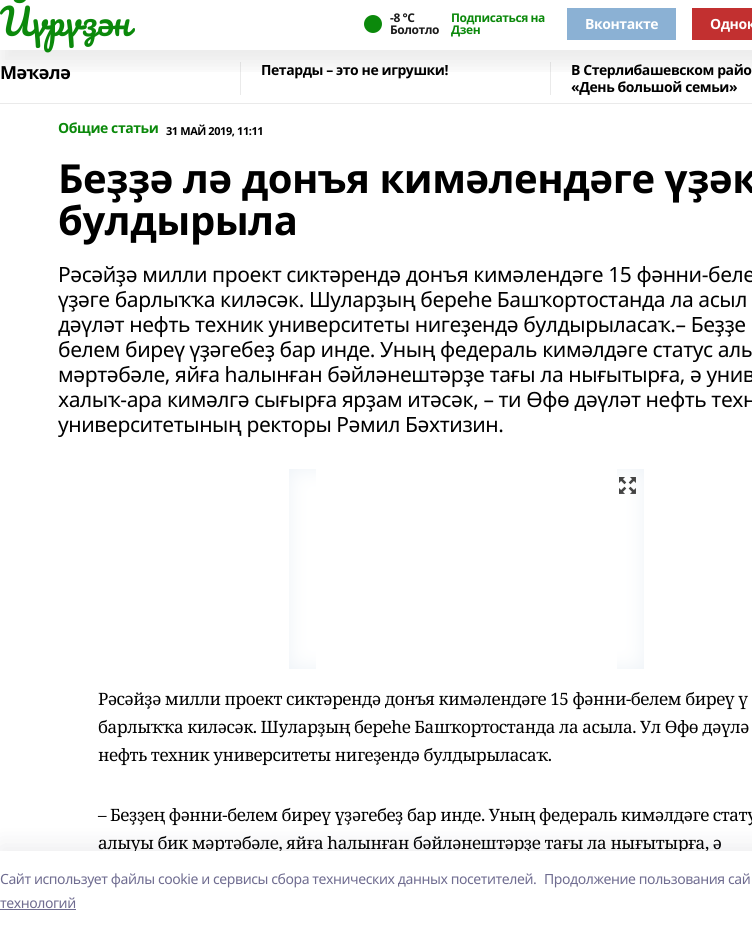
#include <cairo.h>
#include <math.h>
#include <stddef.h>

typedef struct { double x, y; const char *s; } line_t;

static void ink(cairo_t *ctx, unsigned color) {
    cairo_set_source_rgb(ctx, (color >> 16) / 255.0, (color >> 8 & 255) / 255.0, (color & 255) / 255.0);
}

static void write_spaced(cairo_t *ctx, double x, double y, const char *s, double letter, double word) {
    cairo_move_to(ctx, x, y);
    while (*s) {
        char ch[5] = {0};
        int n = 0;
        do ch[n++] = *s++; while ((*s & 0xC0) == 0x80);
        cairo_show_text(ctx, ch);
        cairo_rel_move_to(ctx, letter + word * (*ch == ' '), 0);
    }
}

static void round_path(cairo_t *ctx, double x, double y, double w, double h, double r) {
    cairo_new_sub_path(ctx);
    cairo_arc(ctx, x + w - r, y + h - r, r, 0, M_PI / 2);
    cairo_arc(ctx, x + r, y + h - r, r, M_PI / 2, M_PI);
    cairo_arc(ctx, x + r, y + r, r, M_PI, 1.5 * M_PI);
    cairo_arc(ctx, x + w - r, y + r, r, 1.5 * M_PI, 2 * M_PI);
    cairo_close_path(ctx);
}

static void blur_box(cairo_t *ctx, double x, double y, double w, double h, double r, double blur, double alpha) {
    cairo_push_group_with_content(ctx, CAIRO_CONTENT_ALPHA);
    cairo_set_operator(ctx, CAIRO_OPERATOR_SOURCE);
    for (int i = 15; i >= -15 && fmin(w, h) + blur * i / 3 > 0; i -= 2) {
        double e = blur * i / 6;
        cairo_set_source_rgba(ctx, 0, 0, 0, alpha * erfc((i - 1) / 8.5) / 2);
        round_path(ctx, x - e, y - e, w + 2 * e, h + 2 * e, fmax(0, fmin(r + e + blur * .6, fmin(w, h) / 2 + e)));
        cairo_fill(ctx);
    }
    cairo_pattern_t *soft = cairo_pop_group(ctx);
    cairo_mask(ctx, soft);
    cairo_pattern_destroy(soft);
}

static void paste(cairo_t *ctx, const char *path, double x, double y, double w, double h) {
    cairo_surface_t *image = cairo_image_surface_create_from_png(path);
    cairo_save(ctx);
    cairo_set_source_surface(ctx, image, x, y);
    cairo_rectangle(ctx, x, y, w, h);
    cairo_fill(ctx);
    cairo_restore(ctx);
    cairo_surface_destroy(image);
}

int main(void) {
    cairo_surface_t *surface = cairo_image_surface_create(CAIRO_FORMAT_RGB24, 752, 931);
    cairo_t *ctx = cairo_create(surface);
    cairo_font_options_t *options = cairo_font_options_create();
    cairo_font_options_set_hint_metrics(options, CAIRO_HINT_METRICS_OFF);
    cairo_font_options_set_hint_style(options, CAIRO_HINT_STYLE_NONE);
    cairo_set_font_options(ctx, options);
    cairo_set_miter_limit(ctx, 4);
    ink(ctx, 0xFFFFFF);
    cairo_paint(ctx);
    ink(ctx, 0xEAEAEA);
    cairo_rectangle(ctx, 240, 62, 1, 33);
    cairo_fill(ctx);
    cairo_rectangle(ctx, 550, 62, 1, 33);
    cairo_fill(ctx);
    cairo_save(ctx);
    cairo_rectangle(ctx, 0, 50, 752, 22);
    cairo_clip(ctx);
    ink(ctx, 0x000000);
    blur_box(ctx, 0, 15, 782, 50, 0, 10, 0.08);
    cairo_restore(ctx);
    cairo_select_font_face(ctx, "Pacifico", CAIRO_FONT_SLANT_NORMAL, CAIRO_FONT_WEIGHT_NORMAL);
    cairo_set_font_size(ctx, 36);
    ink(ctx, 0x0B890B);
    write_spaced(ctx, 0, 36, "Йүрүҙән", -0.42, 0);
    cairo_new_path(ctx);
    cairo_arc(ctx, 373, 24, 9, 0, 2 * M_PI);
    cairo_fill(ctx);
    cairo_select_font_face(ctx, "Noto Sans", CAIRO_FONT_SLANT_NORMAL, CAIRO_FONT_WEIGHT_BOLD);
    cairo_set_font_size(ctx, 12);
    ink(ctx, 0x1A1A1A);
    write_spaced(ctx, 390, 22, "-8 °С", -0.42, 0);
    write_spaced(ctx, 390, 34, "Болотло", -0.42, 0);
    ink(ctx, 0x0B890B);
    write_spaced(ctx, 451, 22, "Подписаться на", -0.42, 0);
    write_spaced(ctx, 451, 34, "Дзен", -0.42, 0);
    ink(ctx, 0x8BB1D4);
    cairo_rectangle(ctx, 567, 8, 109, 32);
    cairo_fill(ctx);
    cairo_set_font_size(ctx, 14);
    ink(ctx, 0xFFFFFF);
    write_spaced(ctx, 585, 29, "Вконтакте", -0.42, 0);
    ink(ctx, 0xC23030);
    cairo_rectangle(ctx, 692, 8, 60, 32);
    cairo_fill(ctx);
    ink(ctx, 0xFFFFFF);
    write_spaced(ctx, 710, 29, "Однок", -0.42, 0);
    ink(ctx, 0xEAEAEA);
    cairo_rectangle(ctx, 0, 103, 752, 1);
    cairo_fill(ctx);
    cairo_set_font_size(ctx, 18);
    ink(ctx, 0x000000);
    write_spaced(ctx, 0, 79, "Мәҡәлә", -0.42, 0);
    cairo_set_font_size(ctx, 14);
    {
        static const line_t items[] = {
            {261, 75, "Петарды – это не игрушки!"},
            {571, 75, "В Стерлибашевском райо"},
            {571, 92, "«День большой семьи»"},
        };
        for (size_t i = 0; i < sizeof items / sizeof *items; i++) {
            write_spaced(ctx, items[i].x, items[i].y, items[i].s, -0.42, 0);
        }
    }
    ink(ctx, 0x0B890B);
    write_spaced(ctx, 58, 133, "Общие статьи", -0.42, 0);
    cairo_set_font_size(ctx, 11);
    ink(ctx, 0x000000);
    write_spaced(ctx, 166, 135, "31 МАЙ 2019, 11:11", -0.42, 0);
    cairo_set_font_size(ctx, 40);
    write_spaced(ctx, 58, 193, "Беҙҙә лә донъя кимәлендәге үҙәк", -0.42, 0);
    write_spaced(ctx, 58, 235, "булдырыла", -0.42, 0);
    cairo_select_font_face(ctx, "Noto Sans", CAIRO_FONT_SLANT_NORMAL, CAIRO_FONT_WEIGHT_NORMAL);
    cairo_set_font_size(ctx, 21);
    {
        static const line_t items[] = {
            {58, 282, "Рәсәйҙә милли проект сиктәрендә донъя кимәлендәге 15 фәнни-беле"},
            {58, 307, "үҙәге барлыҡҡа киләсәк. Шуларҙың береһе Башҡортостанда ла асыл"},
            {58, 332, "дәүләт нефть техник университеты нигеҙендә булдырыласаҡ.– Беҙҙе"},
            {58, 357, "белем биреү үҙәгебеҙ бар инде. Уның федераль кимәлдәге статус алы"},
            {58, 382, "мәртәбәле, яйға һалынған бәйләнештәрҙе тағы ла нығытырға, ә унив"},
            {58, 407, "халыҡ-ара кимәлгә сығырға ярҙам итәсәк, – ти Өфө дәүләт нефть техн"},
            {58, 432, "университетының ректоры Рәмил Бәхтизин."},
        };
        for (size_t i = 0; i < sizeof items / sizeof *items; i++) {
            write_spaced(ctx, items[i].x, items[i].y, items[i].s, -0.42, 0);
        }
    }
    ink(ctx, 0xEDF2F7);
    cairo_rectangle(ctx, 289, 469, 355, 200);
    cairo_fill(ctx);
    paste(ctx, "media/1.png", 289, 469, 355, 200);
    ink(ctx, 0xFFFFFF);
    cairo_rectangle(ctx, 316, 469, 301, 200);
    cairo_fill(ctx);
    paste(ctx, "media/2.png", 619, 477, 17, 17);
    cairo_select_font_face(ctx, "Noto Serif", CAIRO_FONT_SLANT_NORMAL, CAIRO_FONT_WEIGHT_NORMAL);
    cairo_set_font_size(ctx, 17);
    ink(ctx, 0x000000);
    {
        static const line_t items[] = {
            {98, 705, "Рәсәйҙә милли проект сиктәрендә донъя кимәлендәге 15 фәнни-белем биреү ү"},
            {98, 733, "барлыҡҡа киләсәк. Шуларҙың береһе Башҡортостанда ла асыла. Ул Өфө дәүлә"},
            {98, 761, "нефть техник университеты нигеҙендә булдырыласаҡ."},
            {98, 821, "– Беҙҙең фәнни-белем биреү үҙәгебеҙ бар инде. Уның федераль кимәлдәге стату"},
            {98, 849, "алыуы бик мәртәбәле, яйға һалынған бәйләнештәрҙе тағы ла нығытырға, ә"},
        };
        for (size_t i = 0; i < sizeof items / sizeof *items; i++) {
            write_spaced(ctx, items[i].x, items[i].y, items[i].s, -0.42, 0);
        }
    }
    ink(ctx, 0x14142B);
    blur_box(ctx, 0, 845, 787, 80, 0, 11.5, 0.08);
    ink(ctx, 0xFFFFFF);
    cairo_rectangle(ctx, 0, 851, 752, 80);
    cairo_fill(ctx);
    cairo_select_font_face(ctx, "Noto Sans", CAIRO_FONT_SLANT_NORMAL, CAIRO_FONT_WEIGHT_NORMAL);
    cairo_set_font_size(ctx, 14);
    ink(ctx, 0x6F6C90);
    {
        static const line_t items[] = {
            {0, 884, "Cайт использует файлы cookie и сервисы сбора технических данных посетителей."},
            {544, 884, "Продолжение пользования сай"},
            {0, 908, "технологий"},
        };
        for (size_t i = 0; i < sizeof items / sizeof *items; i++) {
            write_spaced(ctx, items[i].x, items[i].y, items[i].s, -0.42, 0);
        }
    }
    cairo_rectangle(ctx, 0, 909, 76, 1);
    cairo_fill(ctx);
    cairo_surface_write_to_png(surface, "image.png");
    cairo_font_options_destroy(options);
    cairo_destroy(ctx);
    cairo_surface_destroy(surface);
    return 0;
}
